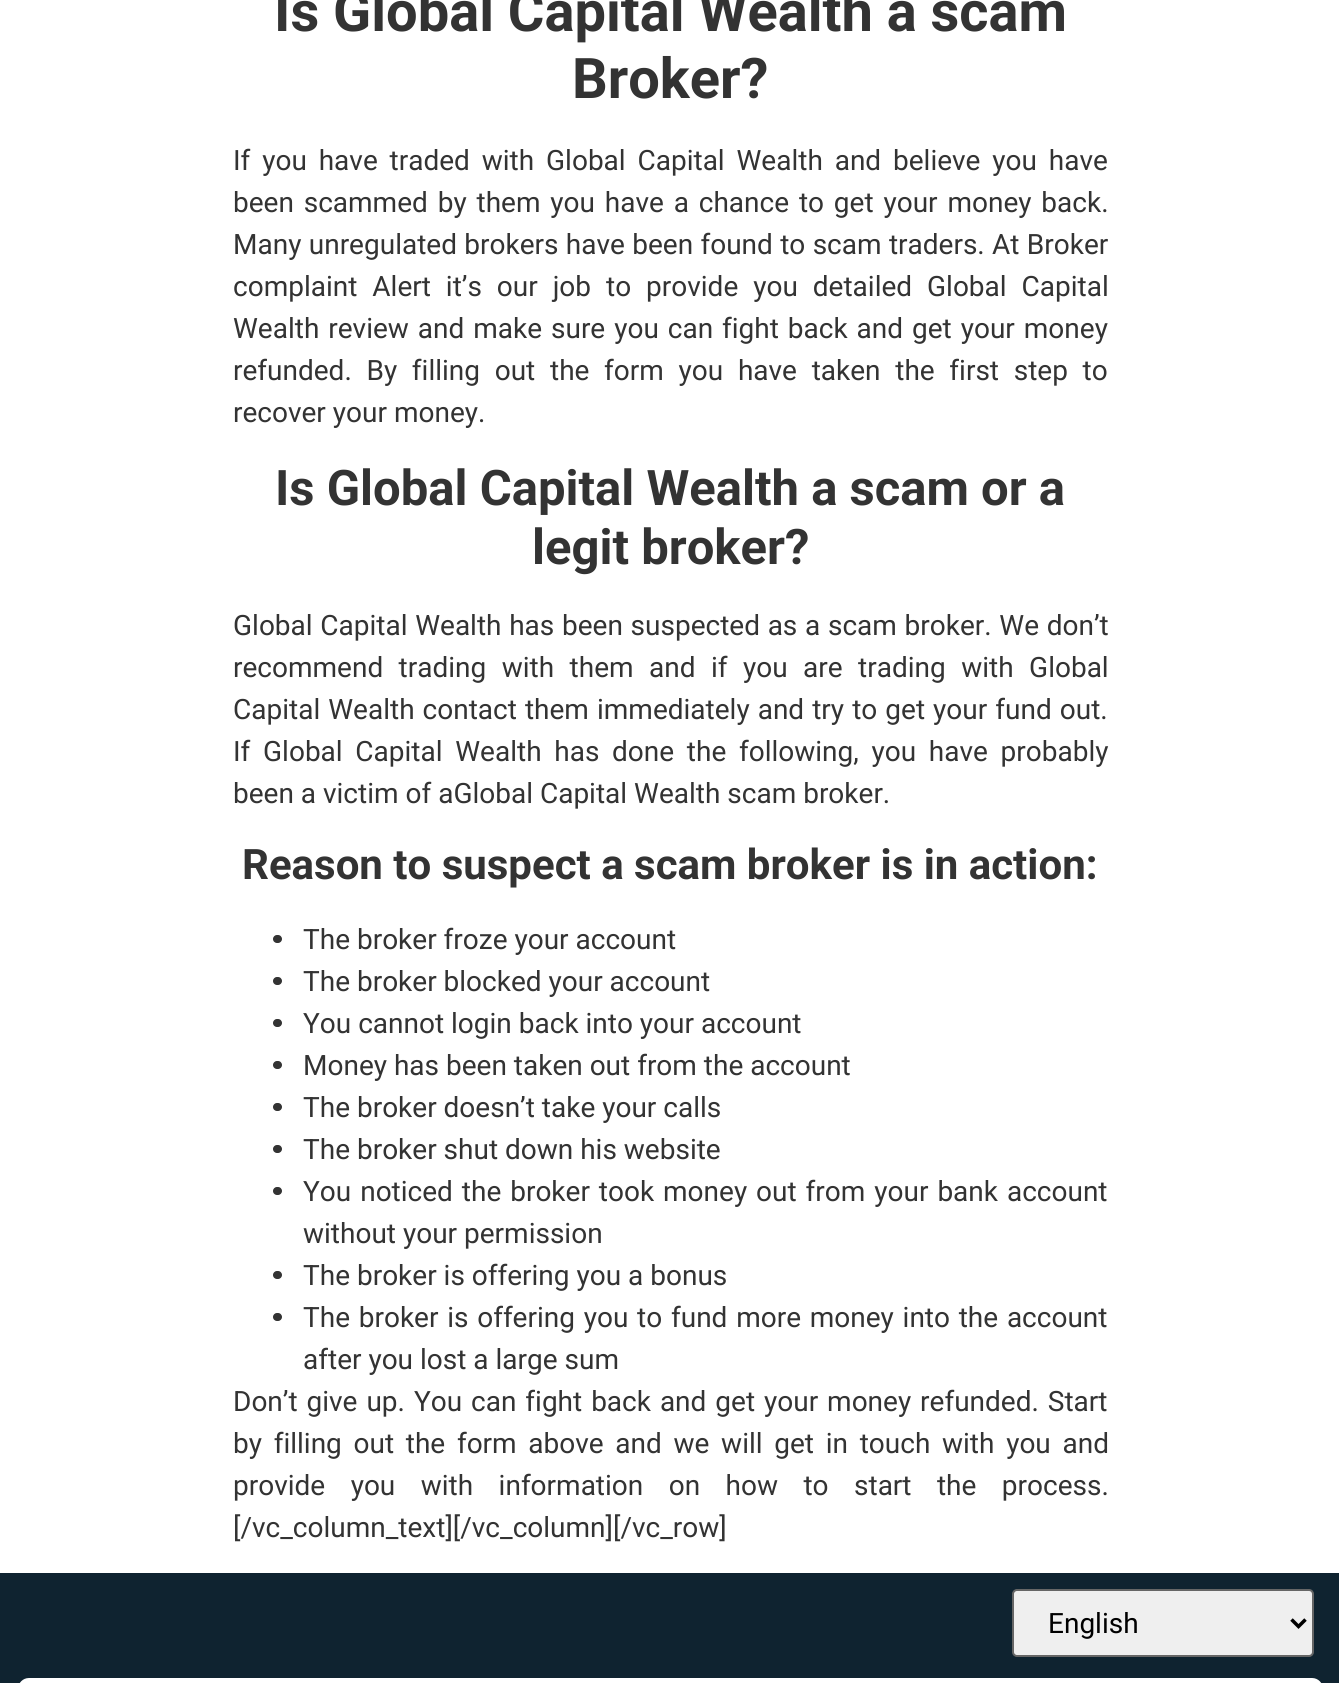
#include <cairo.h>
#include <math.h>
#include <stddef.h>


static void ink(cairo_t *ctx, unsigned color) {
    cairo_set_source_rgb(ctx, (color >> 16) / 255.0, (color >> 8 & 255) / 255.0, (color & 255) / 255.0);
}

static void write_spaced(cairo_t *ctx, double x, double y, const char *s, double letter, double word) {
    cairo_move_to(ctx, x, y);
    while (*s) {
        char ch[5] = {0};
        int n = 0;
        do ch[n++] = *s++; while ((*s & 0xC0) == 0x80);
        cairo_show_text(ctx, ch);
        cairo_rel_move_to(ctx, letter + word * (*ch == ' '), 0);
    }
}

static void round_path(cairo_t *ctx, double x, double y, double w, double h, double r) {
    cairo_new_sub_path(ctx);
    cairo_arc(ctx, x + w - r, y + h - r, r, 0, M_PI / 2);
    cairo_arc(ctx, x + r, y + h - r, r, M_PI / 2, M_PI);
    cairo_arc(ctx, x + r, y + r, r, M_PI, 1.5 * M_PI);
    cairo_arc(ctx, x + w - r, y + r, r, 1.5 * M_PI, 2 * M_PI);
    cairo_close_path(ctx);
}

int main(void) {
    cairo_surface_t *surface = cairo_image_surface_create(CAIRO_FORMAT_RGB24, 1339, 1683);
    cairo_t *ctx = cairo_create(surface);
    cairo_font_options_t *options = cairo_font_options_create();
    cairo_font_options_set_hint_metrics(options, CAIRO_HINT_METRICS_OFF);
    cairo_font_options_set_hint_style(options, CAIRO_HINT_STYLE_NONE);
    cairo_set_font_options(ctx, options);
    cairo_set_miter_limit(ctx, 4);
    ink(ctx, 0xFFFFFF);
    cairo_paint(ctx);
    cairo_select_font_face(ctx, "Roboto", CAIRO_FONT_SLANT_NORMAL, CAIRO_FONT_WEIGHT_BOLD);
    cairo_set_font_size(ctx, 56);
    ink(ctx, 0x333333);
    cairo_move_to(ctx, 274, 31);
    cairo_show_text(ctx, "Is Global Capital Wealth a scam");
    cairo_move_to(ctx, 572, 98);
    cairo_show_text(ctx, "Broker?");
    cairo_select_font_face(ctx, "Roboto", CAIRO_FONT_SLANT_NORMAL, CAIRO_FONT_WEIGHT_NORMAL);
    cairo_set_font_size(ctx, 28);
    write_spaced(ctx, 233, 170, "If you have traded with Global Capital Wealth and believe you have", 0, 4.9);
    write_spaced(ctx, 233, 212, "been scammed by them you have a chance to get your money back.", 0, 2.9);
    write_spaced(ctx, 233, 254, "Many unregulated brokers have been found to scam traders. At Broker", 0, 0.4);
    write_spaced(ctx, 233, 296, "complaint Alert it’s our job to provide you detailed Global Capital", 0, 8);
    write_spaced(ctx, 233, 338, "Wealth review and make sure you can fight back and get your money", 0, 2);
    write_spaced(ctx, 233, 380, "refunded. By filling out the form you have taken the first step to", 0, 7.75);
    cairo_move_to(ctx, 233, 422);
    cairo_show_text(ctx, "recover your money.");
    cairo_select_font_face(ctx, "Roboto", CAIRO_FONT_SLANT_NORMAL, CAIRO_FONT_WEIGHT_BOLD);
    cairo_set_font_size(ctx, 49);
    cairo_move_to(ctx, 275, 505);
    cairo_show_text(ctx, "Is Global Capital Wealth a scam or a");
    cairo_move_to(ctx, 532, 564);
    cairo_show_text(ctx, "legit broker?");
    cairo_select_font_face(ctx, "Roboto", CAIRO_FONT_SLANT_NORMAL, CAIRO_FONT_WEIGHT_NORMAL);
    cairo_set_font_size(ctx, 28);
    write_spaced(ctx, 233, 635, "Global Capital Wealth has been suspected as a scam broker. We don’t", 0, 0.75);
    write_spaced(ctx, 233, 677, "recommend trading with them and if you are trading with Global", 0, 8.5);
    write_spaced(ctx, 233, 719, "Capital Wealth contact them immediately and try to get your fund out.", 0, 1.1);
    write_spaced(ctx, 233, 761, "If Global Capital Wealth has done the following, you have probably", 0, 5.75);
    cairo_move_to(ctx, 233, 803);
    cairo_show_text(ctx, "been a victim of aGlobal Capital Wealth scam broker.");
    cairo_select_font_face(ctx, "Roboto", CAIRO_FONT_SLANT_NORMAL, CAIRO_FONT_WEIGHT_BOLD);
    cairo_set_font_size(ctx, 42);
    cairo_move_to(ctx, 242, 879);
    cairo_show_text(ctx, "Reason to suspect a scam broker is in action:");
    round_path(ctx, 273, 935, 9, 8, 4);
    cairo_fill(ctx);
    cairo_select_font_face(ctx, "Roboto", CAIRO_FONT_SLANT_NORMAL, CAIRO_FONT_WEIGHT_NORMAL);
    cairo_set_font_size(ctx, 28);
    cairo_move_to(ctx, 303, 949);
    cairo_show_text(ctx, "The broker froze your account");
    round_path(ctx, 273, 977, 9, 8, 4);
    cairo_fill(ctx);
    cairo_move_to(ctx, 303, 991);
    cairo_show_text(ctx, "The broker blocked your account");
    round_path(ctx, 273, 1019, 9, 8, 4);
    cairo_fill(ctx);
    cairo_move_to(ctx, 303, 1033);
    cairo_show_text(ctx, "You cannot login back into your account");
    round_path(ctx, 273, 1061, 9, 8, 4);
    cairo_fill(ctx);
    cairo_move_to(ctx, 303, 1075);
    cairo_show_text(ctx, "Money has been taken out from the account");
    round_path(ctx, 273, 1103, 9, 8, 4);
    cairo_fill(ctx);
    cairo_move_to(ctx, 303, 1117);
    cairo_show_text(ctx, "The broker doesn’t take your calls");
    round_path(ctx, 273, 1145, 9, 8, 4);
    cairo_fill(ctx);
    cairo_move_to(ctx, 303, 1159);
    cairo_show_text(ctx, "The broker shut down his website");
    round_path(ctx, 273, 1187, 9, 8, 4);
    cairo_fill(ctx);
    write_spaced(ctx, 303, 1201, "You noticed the broker took money out from your bank account", 0, 2);
    cairo_move_to(ctx, 303, 1243);
    cairo_show_text(ctx, "without your permission");
    round_path(ctx, 273, 1271, 9, 8, 4);
    cairo_fill(ctx);
    cairo_move_to(ctx, 303, 1285);
    cairo_show_text(ctx, "The broker is offering you a bonus");
    round_path(ctx, 273, 1313, 9, 8, 4);
    cairo_fill(ctx);
    write_spaced(ctx, 303, 1327, "The broker is offering you to fund more money into the account", 0, 1.8);
    cairo_move_to(ctx, 303, 1369);
    cairo_show_text(ctx, "after you lost a large sum");
    write_spaced(ctx, 233, 1411, "Don’t give up. You can fight back and get your money refunded. Start", 0, 2);
    write_spaced(ctx, 233, 1453, "by filling out the form above and we will get in touch with you and", 0, 4.75);
    write_spaced(ctx, 233, 1495, "provide you with information on how to start the process.", 0, 18.5);
    cairo_move_to(ctx, 233, 1537);
    cairo_show_text(ctx, "[/vc_column_text][/vc_column][/vc_row]");
    ink(ctx, 0x0F2330);
    cairo_rectangle(ctx, 0, 1573, 1339, 110);
    cairo_fill(ctx);
    ink(ctx, 0xFFFFFF);
    round_path(ctx, 18, 1678, 1305, 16, 11);
    cairo_fill(ctx);
    ink(ctx, 0xEFEFEF);
    round_path(ctx, 1013, 1590, 300, 66, 4);
    cairo_fill_preserve(ctx);
    ink(ctx, 0x666666);
    cairo_stroke(ctx);
    cairo_new_path(ctx);
    cairo_move_to(ctx, 1291.5, 1619.5);
    cairo_line_to(ctx, 1298.5, 1626.5);
    cairo_line_to(ctx, 1305.5, 1619.5);
    ink(ctx, 0x000000);
    cairo_set_line_width(ctx, 3.5);
    cairo_stroke(ctx);
    cairo_move_to(ctx, 1048, 1633);
    cairo_show_text(ctx, "English");
    cairo_surface_write_to_png(surface, "image.png");
    cairo_font_options_destroy(options);
    cairo_destroy(ctx);
    cairo_surface_destroy(surface);
    return 0;
}
